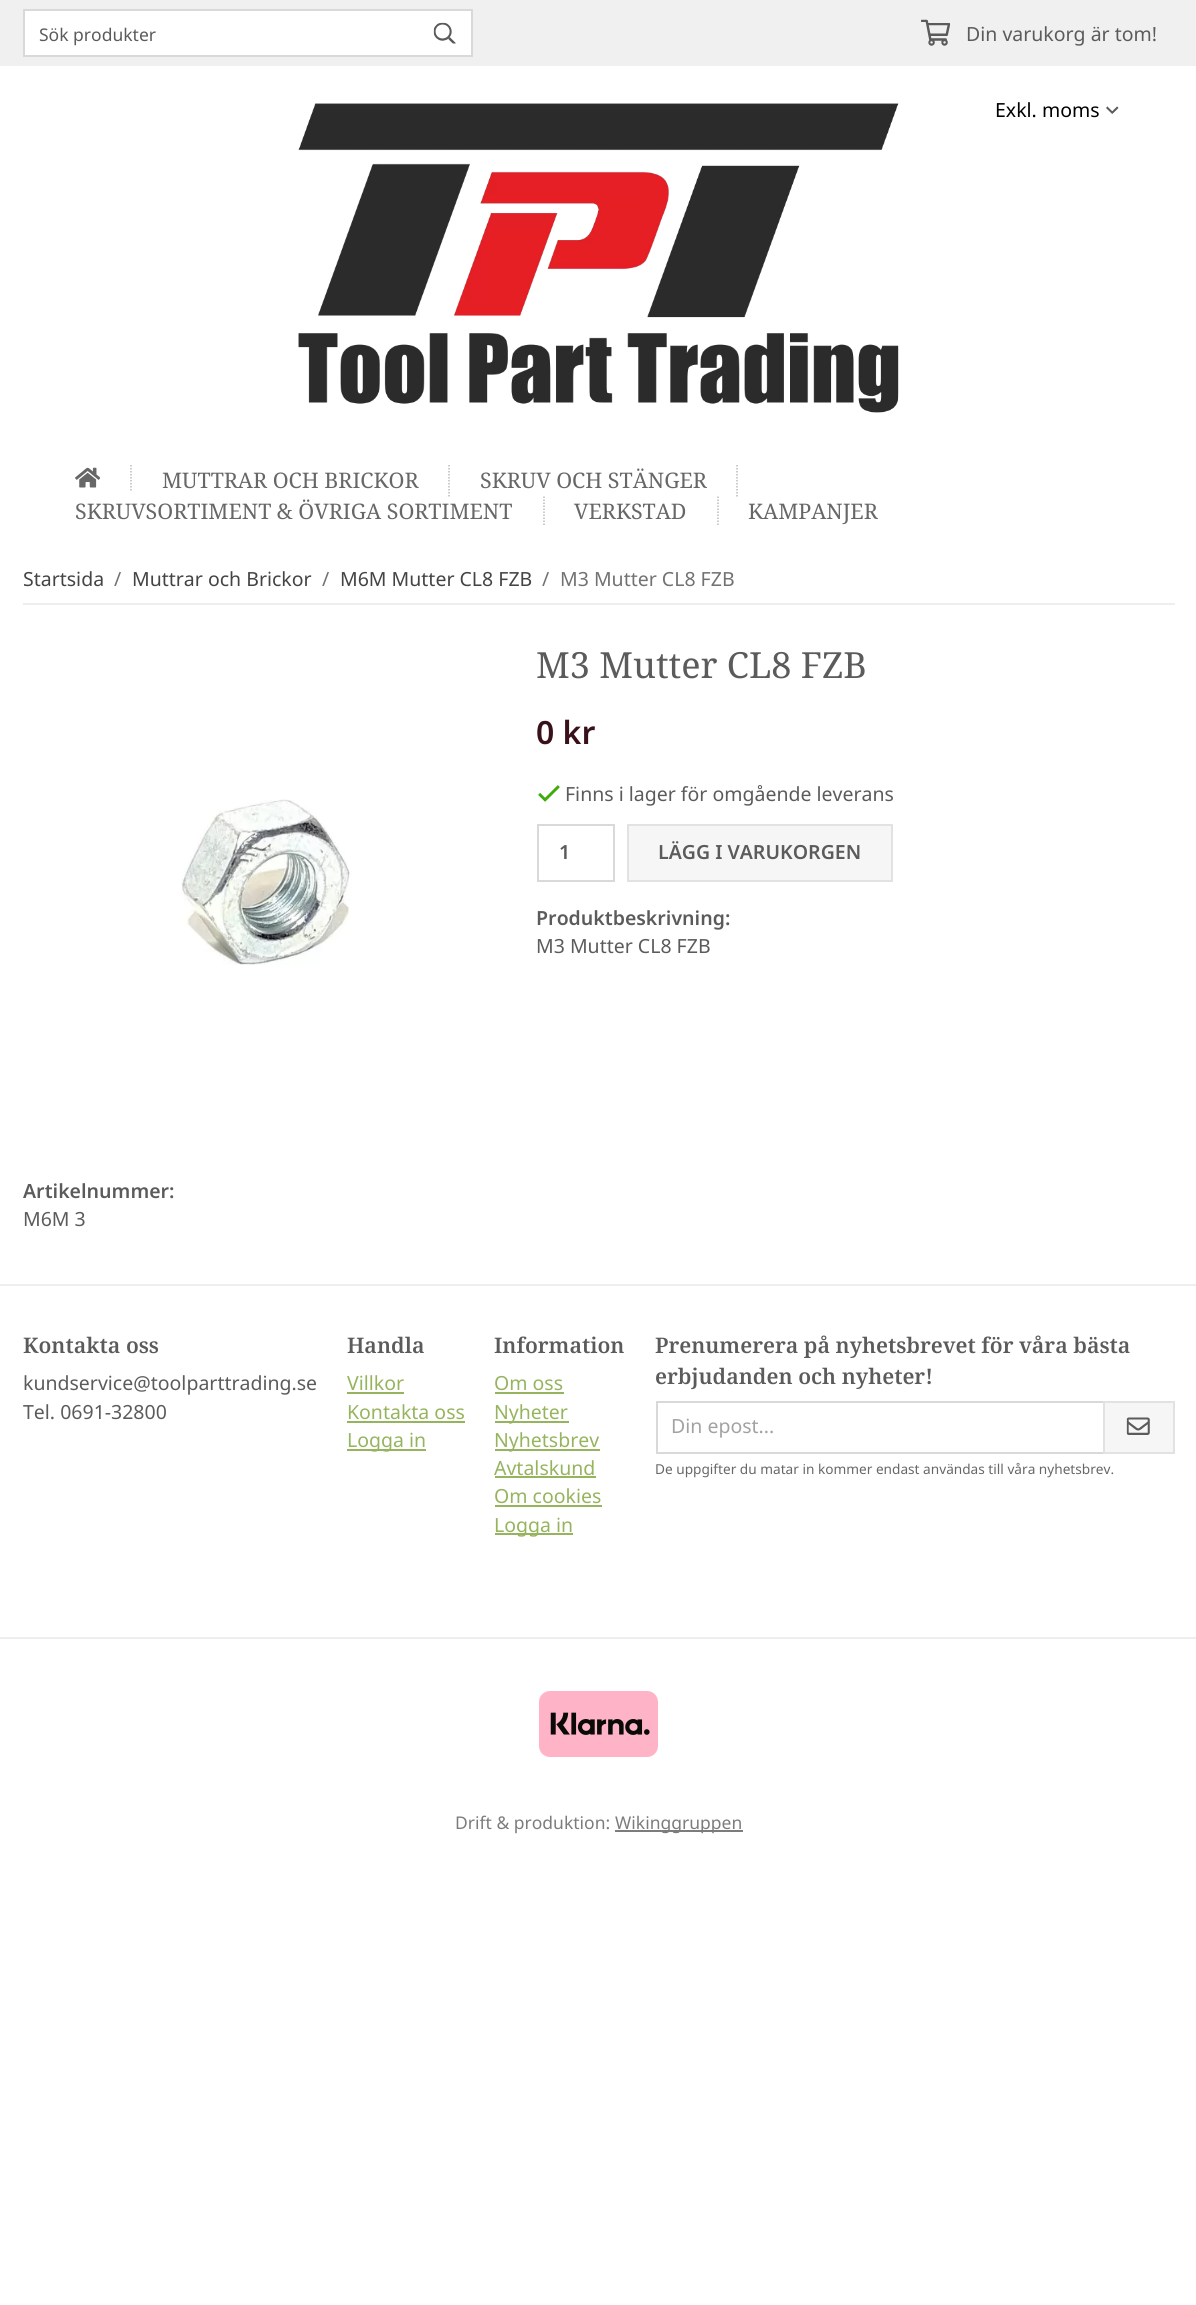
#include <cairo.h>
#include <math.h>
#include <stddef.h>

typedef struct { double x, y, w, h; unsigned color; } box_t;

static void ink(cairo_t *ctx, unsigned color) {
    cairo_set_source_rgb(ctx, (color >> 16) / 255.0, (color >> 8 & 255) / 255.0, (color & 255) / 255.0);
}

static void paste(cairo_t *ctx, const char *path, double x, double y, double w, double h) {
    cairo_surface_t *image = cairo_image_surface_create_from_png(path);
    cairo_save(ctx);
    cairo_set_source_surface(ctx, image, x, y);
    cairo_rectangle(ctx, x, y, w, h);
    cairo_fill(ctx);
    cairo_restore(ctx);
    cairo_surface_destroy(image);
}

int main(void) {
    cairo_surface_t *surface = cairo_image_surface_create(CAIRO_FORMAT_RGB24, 1196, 2305);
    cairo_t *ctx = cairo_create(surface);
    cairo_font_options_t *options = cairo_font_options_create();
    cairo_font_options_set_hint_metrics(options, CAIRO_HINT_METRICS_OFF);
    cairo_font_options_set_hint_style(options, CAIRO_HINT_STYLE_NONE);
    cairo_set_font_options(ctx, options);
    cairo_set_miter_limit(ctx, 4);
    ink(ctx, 0xFFFFFF);
    cairo_paint(ctx);
    ink(ctx, 0xF0F0F0);
    cairo_rectangle(ctx, 0, 0, 1196, 66);
    cairo_fill(ctx);
    ink(ctx, 0xFFFFFF);
    cairo_rectangle(ctx, 24, 10, 448, 46);
    cairo_fill_preserve(ctx);
    ink(ctx, 0xD9D9D9);
    cairo_stroke(ctx);
    cairo_select_font_face(ctx, "Noto Sans", CAIRO_FONT_SLANT_NORMAL, CAIRO_FONT_WEIGHT_NORMAL);
    cairo_set_font_size(ctx, 17.5);
    ink(ctx, 0x5B5B5B);
    cairo_move_to(ctx, 39, 41);
    cairo_show_text(ctx, "Sök produkter");
    paste(ctx, "media/1.png", 433, 22, 23, 22);
    paste(ctx, "media/2.png", 921, 19, 30, 27);
    cairo_set_font_size(ctx, 19.5);
    cairo_move_to(ctx, 966, 41);
    cairo_show_text(ctx, "Din varukorg är tom!");
    paste(ctx, "media/3.png", 298, 103, 601, 310);
    ink(ctx, 0x000000);
    cairo_move_to(ctx, 995, 117);
    cairo_show_text(ctx, "Exkl. moms");
    paste(ctx, "media/4.png", 1106, 106, 13, 8);
    cairo_new_path(ctx);
    cairo_move_to(ctx, 131, 465);
    cairo_line_to(ctx, 131, 490.5);
    ink(ctx, 0xBBBBBB);
    cairo_set_line_width(ctx, 1.5);
    cairo_set_dash(ctx, (double[]){1.5, 1.5}, 2, 0);
    cairo_stroke(ctx);
    paste(ctx, "media/5.png", 75, 467, 25, 21);
    cairo_new_path(ctx);
    cairo_move_to(ctx, 449, 465);
    cairo_line_to(ctx, 449, 496.5);
    cairo_stroke(ctx);
    cairo_select_font_face(ctx, "Noto Serif", CAIRO_FONT_SLANT_NORMAL, CAIRO_FONT_WEIGHT_NORMAL);
    cairo_set_font_size(ctx, 21.45);
    ink(ctx, 0x676767);
    cairo_move_to(ctx, 162, 488);
    cairo_show_text(ctx, "MUTTRAR OCH BRICKOR");
    cairo_new_path(ctx);
    cairo_move_to(ctx, 737, 465);
    cairo_line_to(ctx, 737, 496.5);
    ink(ctx, 0xBBBBBB);
    cairo_stroke(ctx);
    ink(ctx, 0x676767);
    cairo_move_to(ctx, 480, 488);
    cairo_show_text(ctx, "SKRUV OCH STÄNGER");
    cairo_new_path(ctx);
    cairo_move_to(ctx, 544, 496.5);
    cairo_line_to(ctx, 544, 526.5);
    ink(ctx, 0xBBBBBB);
    cairo_stroke(ctx);
    ink(ctx, 0x676767);
    cairo_move_to(ctx, 75, 519);
    cairo_show_text(ctx, "SKRUVSORTIMENT & ÖVRIGA SORTIMENT");
    cairo_new_path(ctx);
    cairo_move_to(ctx, 718, 496.5);
    cairo_line_to(ctx, 718, 526.5);
    ink(ctx, 0xBBBBBB);
    cairo_stroke(ctx);
    ink(ctx, 0x676767);
    cairo_move_to(ctx, 574, 519);
    cairo_show_text(ctx, "VERKSTAD");
    cairo_move_to(ctx, 748, 519);
    cairo_show_text(ctx, "KAMPANJER");
    ink(ctx, 0xEEEEEE);
    cairo_rectangle(ctx, 23, 603, 1152, 2);
    cairo_fill(ctx);
    cairo_select_font_face(ctx, "Noto Sans", CAIRO_FONT_SLANT_NORMAL, CAIRO_FONT_WEIGHT_NORMAL);
    cairo_set_font_size(ctx, 19.5);
    ink(ctx, 0x444444);
    cairo_move_to(ctx, 23, 586);
    cairo_show_text(ctx, "Startsida");
    ink(ctx, 0x727272);
    cairo_move_to(ctx, 114, 586);
    cairo_show_text(ctx, "/");
    ink(ctx, 0x444444);
    cairo_move_to(ctx, 132, 586);
    cairo_show_text(ctx, "Muttrar och Brickor");
    ink(ctx, 0x727272);
    cairo_move_to(ctx, 322, 586);
    cairo_show_text(ctx, "/");
    ink(ctx, 0x444444);
    cairo_move_to(ctx, 340, 586);
    cairo_show_text(ctx, "M6M Mutter CL8 FZB");
    ink(ctx, 0x727272);
    cairo_move_to(ctx, 542, 586);
    cairo_show_text(ctx, "/");
    cairo_move_to(ctx, 560, 586);
    cairo_show_text(ctx, "M3 Mutter CL8 FZB");
    paste(ctx, "media/6.png", 181, 799, 171, 166);
    cairo_select_font_face(ctx, "Noto Serif", CAIRO_FONT_SLANT_NORMAL, CAIRO_FONT_WEIGHT_NORMAL);
    cairo_set_font_size(ctx, 36);
    ink(ctx, 0x5B5B5B);
    cairo_move_to(ctx, 536, 678);
    cairo_show_text(ctx, "M3 Mutter CL8 FZB");
    cairo_select_font_face(ctx, "Noto Sans SemiBold", CAIRO_FONT_SLANT_NORMAL, CAIRO_FONT_WEIGHT_NORMAL);
    cairo_set_font_size(ctx, 32);
    ink(ctx, 0x38111A);
    cairo_move_to(ctx, 536, 744);
    cairo_show_text(ctx, "0 kr");
    paste(ctx, "media/7.png", 538, 785, 22, 17);
    cairo_select_font_face(ctx, "Noto Sans", CAIRO_FONT_SLANT_NORMAL, CAIRO_FONT_WEIGHT_NORMAL);
    cairo_set_font_size(ctx, 19.5);
    ink(ctx, 0x5B5B5B);
    cairo_move_to(ctx, 565, 801);
    cairo_show_text(ctx, "Finns i lager för omgående leverans");
    cairo_rectangle(ctx, 538, 825, 76, 56);
    ink(ctx, 0xD9D9D9);
    cairo_set_line_width(ctx, 2);
    cairo_set_dash(ctx, NULL, 0, 0);
    cairo_stroke(ctx);
    cairo_select_font_face(ctx, "Noto Sans SemiBold", CAIRO_FONT_SLANT_NORMAL, CAIRO_FONT_WEIGHT_NORMAL);
    ink(ctx, 0x5B5B5B);
    cairo_move_to(ctx, 559, 859);
    cairo_show_text(ctx, "1");
    ink(ctx, 0xF6F6F6);
    cairo_rectangle(ctx, 628, 825, 264, 56);
    cairo_fill_preserve(ctx);
    ink(ctx, 0xE2E2E2);
    cairo_stroke(ctx);
    ink(ctx, 0x5B5B5B);
    cairo_move_to(ctx, 658, 859);
    cairo_show_text(ctx, "LÄGG I VARUKORGEN");
    cairo_move_to(ctx, 536, 925);
    cairo_show_text(ctx, "Produktbeskrivning:");
    cairo_select_font_face(ctx, "Noto Sans", CAIRO_FONT_SLANT_NORMAL, CAIRO_FONT_WEIGHT_NORMAL);
    cairo_move_to(ctx, 536, 953);
    cairo_show_text(ctx, "M3 Mutter CL8 FZB");
    cairo_select_font_face(ctx, "Noto Sans SemiBold", CAIRO_FONT_SLANT_NORMAL, CAIRO_FONT_WEIGHT_NORMAL);
    cairo_move_to(ctx, 23, 1198);
    cairo_show_text(ctx, "Artikelnummer:");
    cairo_select_font_face(ctx, "Noto Sans", CAIRO_FONT_SLANT_NORMAL, CAIRO_FONT_WEIGHT_NORMAL);
    cairo_move_to(ctx, 23, 1226);
    cairo_show_text(ctx, "M6M 3");
    ink(ctx, 0xEEEEEE);
    cairo_rectangle(ctx, 0, 1284, 1196, 2);
    cairo_fill(ctx);
    cairo_select_font_face(ctx, "Noto Serif SemiBold", CAIRO_FONT_SLANT_NORMAL, CAIRO_FONT_WEIGHT_NORMAL);
    cairo_set_font_size(ctx, 21.45);
    ink(ctx, 0x5B5B5B);
    cairo_move_to(ctx, 23, 1353);
    cairo_show_text(ctx, "Kontakta oss");
    cairo_select_font_face(ctx, "Noto Sans", CAIRO_FONT_SLANT_NORMAL, CAIRO_FONT_WEIGHT_NORMAL);
    cairo_set_font_size(ctx, 19.5);
    cairo_move_to(ctx, 23, 1390);
    cairo_show_text(ctx, "kundservice@toolparttrading.se");
    cairo_move_to(ctx, 23, 1419);
    cairo_show_text(ctx, "Tel. 0691-32800");
    cairo_select_font_face(ctx, "Noto Serif SemiBold", CAIRO_FONT_SLANT_NORMAL, CAIRO_FONT_WEIGHT_NORMAL);
    cairo_set_font_size(ctx, 21.45);
    cairo_move_to(ctx, 347, 1353);
    cairo_show_text(ctx, "Handla");
    cairo_select_font_face(ctx, "Noto Sans", CAIRO_FONT_SLANT_NORMAL, CAIRO_FONT_WEIGHT_NORMAL);
    cairo_set_font_size(ctx, 19.5);
    ink(ctx, 0x96B45E);
    cairo_move_to(ctx, 347, 1390);
    cairo_show_text(ctx, "Villkor");
    cairo_rectangle(ctx, 347, 1392, 57, 2);
    cairo_fill(ctx);
    cairo_move_to(ctx, 347, 1419);
    cairo_show_text(ctx, "Kontakta oss");
    cairo_rectangle(ctx, 347, 1421, 118, 2);
    cairo_fill(ctx);
    cairo_rectangle(ctx, 347, 1449, 79, 2);
    cairo_fill(ctx);
    cairo_move_to(ctx, 347, 1447);
    cairo_show_text(ctx, "Logga in");
    cairo_select_font_face(ctx, "Noto Serif SemiBold", CAIRO_FONT_SLANT_NORMAL, CAIRO_FONT_WEIGHT_NORMAL);
    cairo_set_font_size(ctx, 21.45);
    ink(ctx, 0x5B5B5B);
    cairo_move_to(ctx, 494, 1353);
    cairo_show_text(ctx, "Information");
    cairo_select_font_face(ctx, "Noto Sans", CAIRO_FONT_SLANT_NORMAL, CAIRO_FONT_WEIGHT_NORMAL);
    cairo_set_font_size(ctx, 19.5);
    ink(ctx, 0x96B45E);
    cairo_move_to(ctx, 494, 1390);
    cairo_show_text(ctx, "Om oss");
    cairo_rectangle(ctx, 495, 1392, 69, 2);
    cairo_fill(ctx);
    cairo_rectangle(ctx, 495, 1421, 74, 2);
    cairo_fill(ctx);
    cairo_move_to(ctx, 494, 1419);
    cairo_show_text(ctx, "Nyheter");
    cairo_rectangle(ctx, 495, 1449, 105, 2);
    cairo_fill(ctx);
    cairo_move_to(ctx, 494, 1447);
    cairo_show_text(ctx, "Nyhetsbrev");
    cairo_move_to(ctx, 494, 1475);
    cairo_show_text(ctx, "Avtalskund");
    cairo_rectangle(ctx, 495, 1476, 101, 2);
    cairo_fill(ctx);
    cairo_move_to(ctx, 494, 1503);
    cairo_show_text(ctx, "Om cookies");
    cairo_rectangle(ctx, 495, 1505, 107, 2);
    cairo_fill(ctx);
    cairo_rectangle(ctx, 495, 1533, 78, 2);
    cairo_fill(ctx);
    cairo_move_to(ctx, 494, 1532);
    cairo_show_text(ctx, "Logga in");
    cairo_select_font_face(ctx, "Noto Serif SemiBold", CAIRO_FONT_SLANT_NORMAL, CAIRO_FONT_WEIGHT_NORMAL);
    cairo_set_font_size(ctx, 21.45);
    ink(ctx, 0x5B5B5B);
    cairo_move_to(ctx, 655, 1353);
    cairo_show_text(ctx, "Prenumerera på nyhetsbrevet för våra bästa");
    cairo_move_to(ctx, 655, 1384);
    cairo_show_text(ctx, "erbjudanden och nyheter!");
    {
        static const box_t items[] = {
            {656, 1401, 447, 2, 0xD9D9D9},
            {656, 1452, 447, 2, 0xD9D9D9},
            {656, 1401, 2, 53, 0xD9D9D9},
        };
        for (size_t i = 0; i < sizeof items / sizeof *items; i++) {
            ink(ctx, items[i].color);
            cairo_rectangle(ctx, items[i].x, items[i].y, items[i].w, items[i].h);
            cairo_fill(ctx);
        }
    }
    cairo_select_font_face(ctx, "Noto Sans", CAIRO_FONT_SLANT_NORMAL, CAIRO_FONT_WEIGHT_NORMAL);
    cairo_set_font_size(ctx, 19.5);
    ink(ctx, 0xA2A2A2);
    cairo_move_to(ctx, 671, 1433);
    cairo_show_text(ctx, "Din epost...");
    ink(ctx, 0xF6F6F6);
    cairo_rectangle(ctx, 1104, 1402, 70, 51);
    cairo_fill_preserve(ctx);
    ink(ctx, 0xE2E2E2);
    cairo_stroke(ctx);
    paste(ctx, "media/8.png", 1126, 1417, 24, 18);
    cairo_set_font_size(ctx, 13.65);
    ink(ctx, 0x676767);
    cairo_move_to(ctx, 655, 1474);
    cairo_show_text(ctx, "De uppgifter du matar in kommer endast användas till våra nyhetsbrev.");
    ink(ctx, 0xEEEEEE);
    cairo_rectangle(ctx, 0, 1637, 1196, 2);
    cairo_fill(ctx);
    paste(ctx, "media/9.png", 539, 1691, 119, 66);
    cairo_set_font_size(ctx, 17.5);
    ink(ctx, 0x7C7C7C);
    cairo_move_to(ctx, 455, 1829);
    cairo_show_text(ctx, "Drift & produktion:");
    cairo_rectangle(ctx, 615, 1830, 128, 2);
    cairo_fill(ctx);
    cairo_move_to(ctx, 615, 1829);
    cairo_show_text(ctx, "Wikinggruppen");
    cairo_surface_write_to_png(surface, "image.png");
    cairo_font_options_destroy(options);
    cairo_destroy(ctx);
    cairo_surface_destroy(surface);
    return 0;
}
